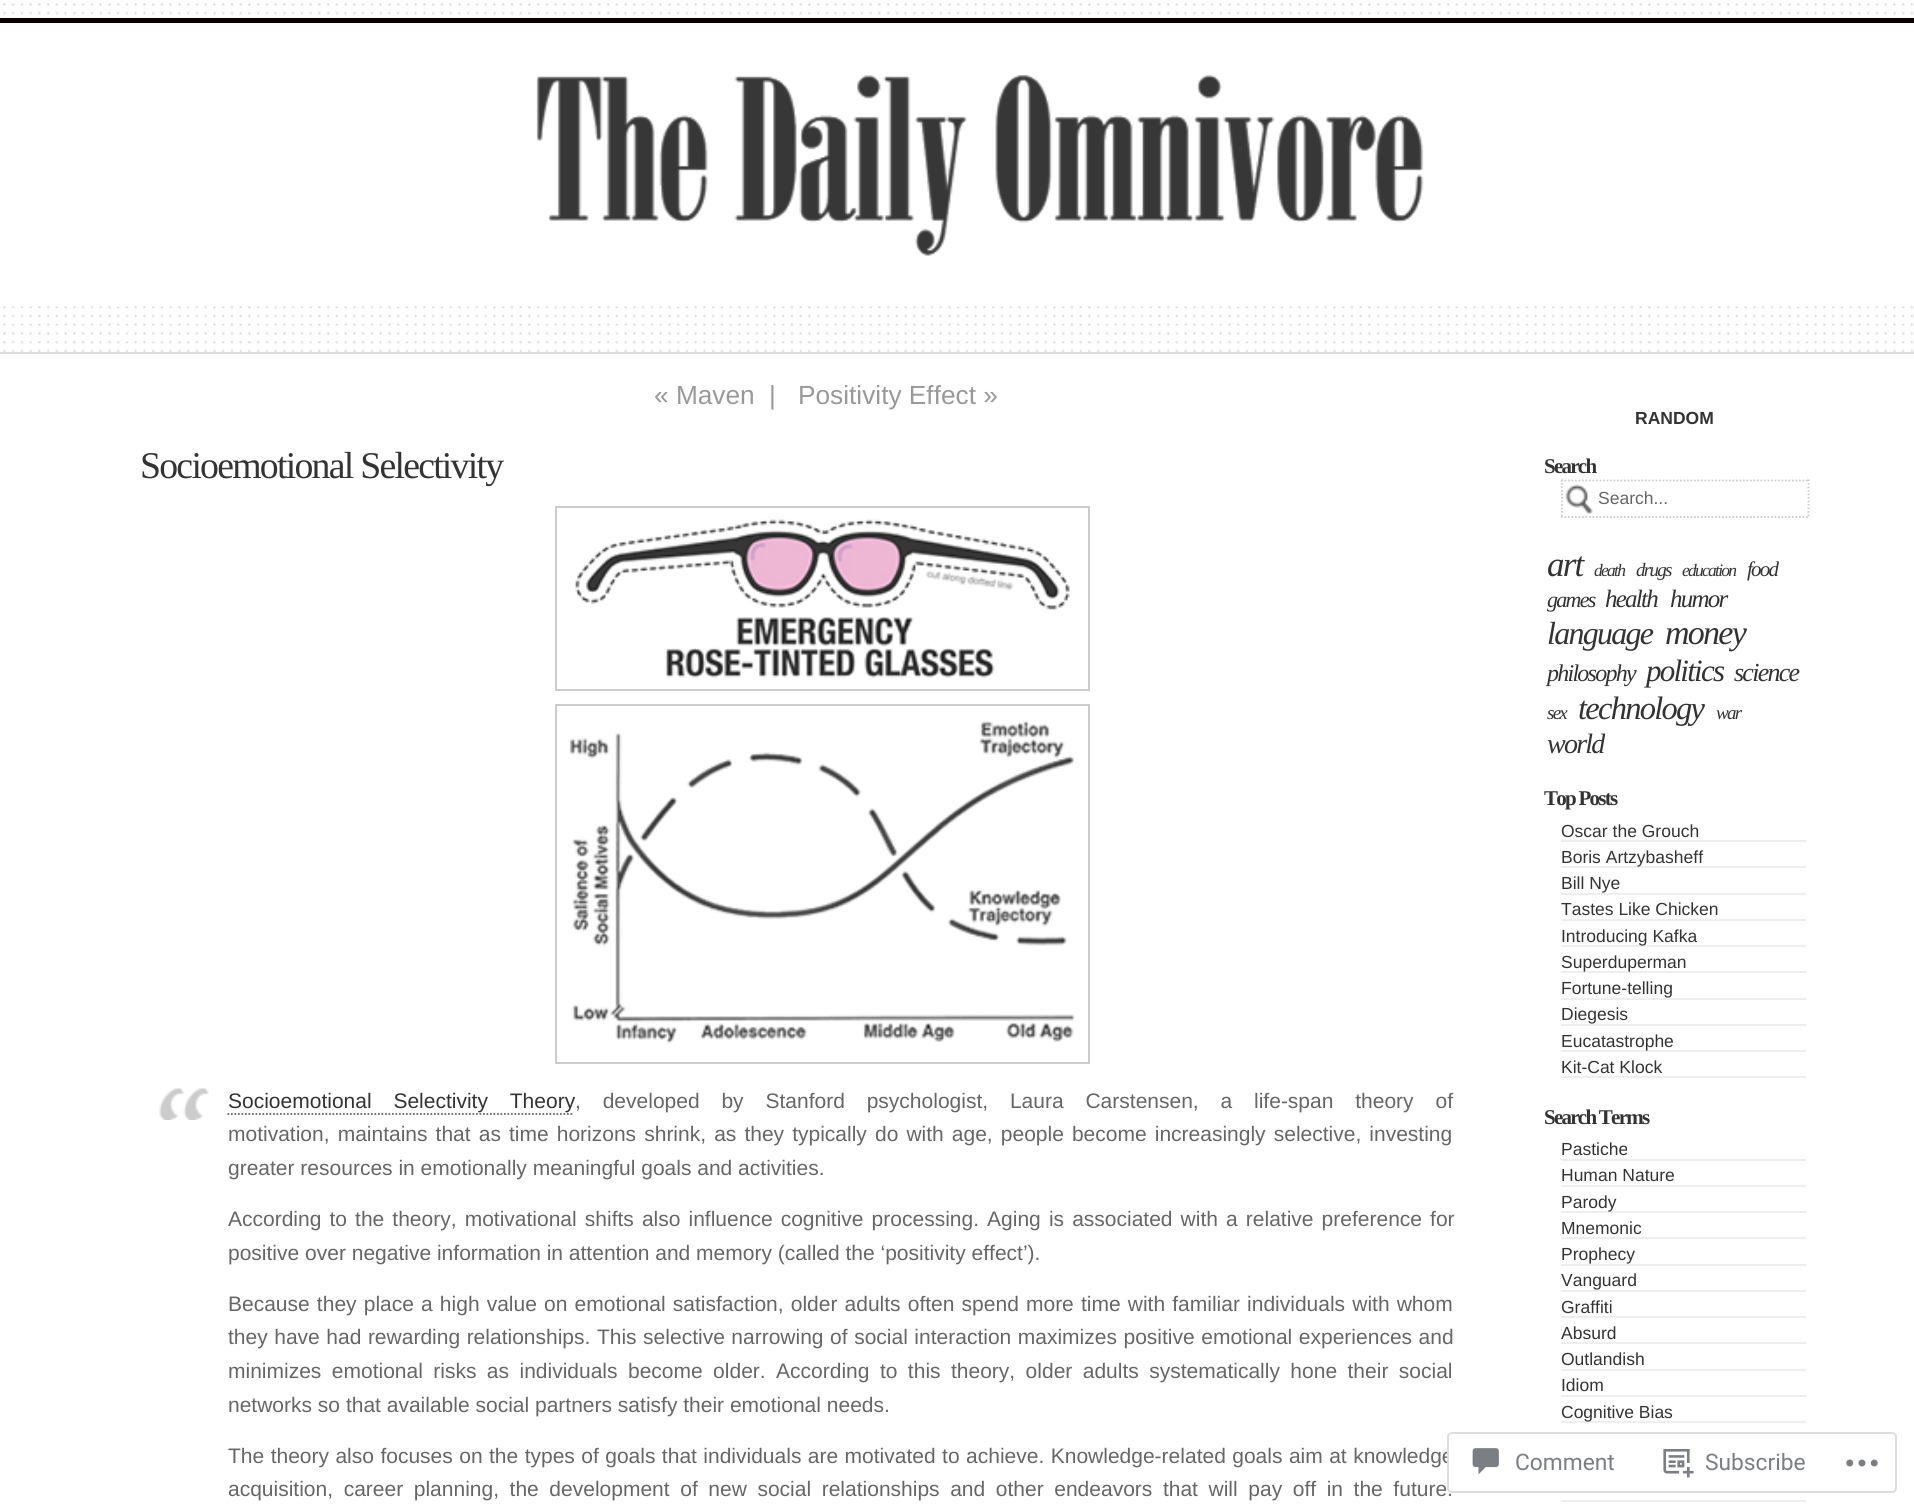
#include <cairo.h>
#include <math.h>
#include <stddef.h>

typedef struct { double x, y; const char *s; } line_t;
typedef struct { double x, y, w, h; unsigned color; } box_t;

static void ink(cairo_t *ctx, unsigned color) {
    cairo_set_source_rgb(ctx, (color >> 16) / 255.0, (color >> 8 & 255) / 255.0, (color & 255) / 255.0);
}

static void write_spaced(cairo_t *ctx, double x, double y, const char *s, double letter, double word) {
    cairo_move_to(ctx, x, y);
    while (*s) {
        char ch[5] = {0};
        int n = 0;
        do ch[n++] = *s++; while ((*s & 0xC0) == 0x80);
        cairo_show_text(ctx, ch);
        cairo_rel_move_to(ctx, letter + word * (*ch == ' '), 0);
    }
}

static void round_path(cairo_t *ctx, double x, double y, double w, double h, double r) {
    cairo_new_sub_path(ctx);
    cairo_arc(ctx, x + w - r, y + h - r, r, 0, M_PI / 2);
    cairo_arc(ctx, x + r, y + h - r, r, M_PI / 2, M_PI);
    cairo_arc(ctx, x + r, y + r, r, M_PI, 1.5 * M_PI);
    cairo_arc(ctx, x + w - r, y + r, r, 1.5 * M_PI, 2 * M_PI);
    cairo_close_path(ctx);
}

static void paste(cairo_t *ctx, const char *path, double x, double y, double w, double h) {
    cairo_surface_t *image = cairo_image_surface_create_from_png(path);
    cairo_save(ctx);
    cairo_set_source_surface(ctx, image, x, y);
    cairo_rectangle(ctx, x, y, w, h);
    cairo_fill(ctx);
    cairo_restore(ctx);
    cairo_surface_destroy(image);
}

int main(void) {
    cairo_surface_t *surface = cairo_image_surface_create(CAIRO_FORMAT_RGB24, 1914, 1510);
    cairo_t *ctx = cairo_create(surface);
    cairo_font_options_t *options = cairo_font_options_create();
    cairo_font_options_set_hint_metrics(options, CAIRO_HINT_METRICS_OFF);
    cairo_font_options_set_hint_style(options, CAIRO_HINT_STYLE_NONE);
    cairo_set_font_options(ctx, options);
    cairo_set_miter_limit(ctx, 4);
    ink(ctx, 0xFFFFFF);
    cairo_paint(ctx);
    paste(ctx, "media/1.png", 3, 3, 1911, 12);
    ink(ctx, 0x0A0000);
    cairo_rectangle(ctx, 0, 18, 1914, 5);
    cairo_fill(ctx);
    paste(ctx, "media/2.png", 536, 74, 888, 182);
    paste(ctx, "media/3.png", 3, 306, 1911, 46);
    ink(ctx, 0xDDDDDD);
    cairo_rectangle(ctx, 0, 352, 1914, 2);
    cairo_fill(ctx);
    cairo_select_font_face(ctx, "Liberation Sans", CAIRO_FONT_SLANT_NORMAL, CAIRO_FONT_WEIGHT_NORMAL);
    cairo_set_font_size(ctx, 26.25);
    ink(ctx, 0x999999);
    {
        static const line_t items[] = {
            {654, 404, "« Maven"},
            {769, 404, "|"},
            {798, 404, "Positivity Effect »"},
        };
        for (size_t i = 0; i < sizeof items / sizeof *items; i++) {
            cairo_move_to(ctx, items[i].x, items[i].y);
            cairo_show_text(ctx, items[i].s);
        }
    }
    cairo_select_font_face(ctx, "Liberation Serif", CAIRO_FONT_SLANT_NORMAL, CAIRO_FONT_WEIGHT_NORMAL);
    cairo_set_font_size(ctx, 37.75);
    ink(ctx, 0x333333);
    write_spaced(ctx, 140, 478, "Socioemotional Selectivity", -1.75, 0);
    cairo_rectangle(ctx, 556, 507, 533, 183);
    ink(ctx, 0xCCCCCC);
    cairo_stroke(ctx);
    paste(ctx, "media/4.png", 575, 519, 495, 159);
    cairo_rectangle(ctx, 556, 705, 533, 358);
    cairo_stroke(ctx);
    paste(ctx, "media/5.png", 569, 720, 506, 324);
    paste(ctx, "media/6.png", 159, 1088, 50, 32);
    cairo_select_font_face(ctx, "Liberation Sans", CAIRO_FONT_SLANT_NORMAL, CAIRO_FONT_WEIGHT_NORMAL);
    cairo_set_font_size(ctx, 21);
    ink(ctx, 0x333333);
    write_spaced(ctx, 228, 1108, "Socioemotional Selectivity Theory", 0, 16);
    cairo_new_path(ctx);
    cairo_move_to(ctx, 227.5, 1114);
    cairo_line_to(ctx, 574, 1114);
    ink(ctx, 0x666666);
    cairo_set_line_width(ctx, 1.8);
    cairo_set_dash(ctx, (double[]){1.75, 1.75}, 2, 0);
    cairo_stroke(ctx);
    write_spaced(ctx, 575, 1108, ", developed by Stanford psychologist, Laura Carstensen, a life-span theory of", 0, 16);
    write_spaced(ctx, 228, 1141, "motivation, maintains that as time horizons shrink, as they typically do with age, people become increasingly selective, investing", 0, 2.25);
    cairo_move_to(ctx, 228, 1175);
    cairo_show_text(ctx, "greater resources in emotionally meaningful goals and activities.");
    write_spaced(ctx, 228, 1226, "According to the theory, motivational shifts also influence cognitive processing. Aging is associated with a relative preference for", 0, 2.25);
    cairo_move_to(ctx, 228, 1260);
    cairo_show_text(ctx, "positive over negative information in attention and memory (called the ‘positivity effect’).");
    write_spaced(ctx, 228, 1311, "Because they place a high value on emotional satisfaction, older adults often spend more time with familiar individuals with whom", 0, 1.3);
    write_spaced(ctx, 228, 1344, "they have had rewarding relationships. This selective narrowing of social interaction maximizes positive emotional experiences and", 0, 0.7);
    write_spaced(ctx, 228, 1378, "minimizes emotional risks as individuals become older. According to this theory, older adults systematically hone their social", 0, 4.6);
    cairo_move_to(ctx, 228, 1412);
    cairo_show_text(ctx, "networks so that available social partners satisfy their emotional needs.");
    write_spaced(ctx, 228, 1463, "The theory also focuses on the types of goals that individuals are motivated to achieve. Knowledge-related goals aim at knowledge", 0, 0.6);
    write_spaced(ctx, 228, 1496, "acquisition, career planning, the development of new social relationships and other endeavors that will pay off in the future.", 0, 4.75);
    cairo_select_font_face(ctx, "Liberation Sans", CAIRO_FONT_SLANT_NORMAL, CAIRO_FONT_WEIGHT_BOLD);
    cairo_set_font_size(ctx, 17.5);
    ink(ctx, 0x333333);
    cairo_move_to(ctx, 1635, 424);
    cairo_show_text(ctx, "RANDOM");
    cairo_select_font_face(ctx, "Liberation Serif", CAIRO_FONT_SLANT_NORMAL, CAIRO_FONT_WEIGHT_BOLD);
    cairo_set_font_size(ctx, 21);
    write_spaced(ctx, 1544, 473, "Search", -1.75, 0);
    paste(ctx, "media/7.png", 1565, 484, 28, 31);
    cairo_new_path(ctx);
    cairo_move_to(ctx, 1561, 480.5);
    cairo_line_to(ctx, 1809.5, 480.5);
    ink(ctx, 0xCCCCCC);
    cairo_stroke(ctx);
    cairo_new_path(ctx);
    cairo_move_to(ctx, 1808.5, 479.5);
    cairo_line_to(ctx, 1808.5, 518);
    cairo_stroke(ctx);
    cairo_new_path(ctx);
    cairo_move_to(ctx, 1561, 517);
    cairo_line_to(ctx, 1809.5, 517);
    cairo_stroke(ctx);
    cairo_new_path(ctx);
    cairo_move_to(ctx, 1562, 479.5);
    cairo_line_to(ctx, 1562, 518);
    cairo_stroke(ctx);
    cairo_select_font_face(ctx, "Liberation Sans", CAIRO_FONT_SLANT_NORMAL, CAIRO_FONT_WEIGHT_NORMAL);
    cairo_set_font_size(ctx, 17.5);
    ink(ctx, 0x666666);
    cairo_move_to(ctx, 1598, 504);
    cairo_show_text(ctx, "Search...");
    cairo_select_font_face(ctx, "Liberation Serif", CAIRO_FONT_SLANT_ITALIC, CAIRO_FONT_WEIGHT_NORMAL);
    cairo_set_font_size(ctx, 35);
    ink(ctx, 0x333333);
    write_spaced(ctx, 1547, 576, "art", -1.75, 0);
    cairo_set_font_size(ctx, 17.5);
    write_spaced(ctx, 1594, 576, "death", -1.75, 0);
    cairo_set_font_size(ctx, 19);
    write_spaced(ctx, 1636, 576, "drugs", -1.75, 0);
    cairo_set_font_size(ctx, 17.5);
    write_spaced(ctx, 1682, 576, "education", -1.75, 0);
    cairo_set_font_size(ctx, 21);
    write_spaced(ctx, 1747, 576, "food", -1.75, 0);
    cairo_set_font_size(ctx, 22);
    write_spaced(ctx, 1547, 607, "games", -1.75, 0);
    cairo_set_font_size(ctx, 25);
    write_spaced(ctx, 1605, 607, "health", -1.75, 0);
    write_spaced(ctx, 1670, 607, "humor", -1.75, 0);
    cairo_set_font_size(ctx, 32);
    write_spaced(ctx, 1547, 644, "language", -1.75, 0);
    cairo_set_font_size(ctx, 34);
    write_spaced(ctx, 1665, 644, "money", -1.75, 0);
    cairo_set_font_size(ctx, 24);
    write_spaced(ctx, 1547, 681, "philosophy", -1.75, 0);
    cairo_set_font_size(ctx, 31);
    write_spaced(ctx, 1646, 681, "politics", -1.75, 0);
    cairo_set_font_size(ctx, 26);
    write_spaced(ctx, 1734, 681, "science", -1.75, 0);
    cairo_set_font_size(ctx, 19);
    write_spaced(ctx, 1547, 719, "sex", -1.75, 0);
    cairo_set_font_size(ctx, 32.5);
    write_spaced(ctx, 1578, 719, "technology", -1.75, 0);
    cairo_set_font_size(ctx, 19);
    write_spaced(ctx, 1716, 719, "war", -1.75, 0);
    cairo_set_font_size(ctx, 28);
    write_spaced(ctx, 1547, 753, "world", -1.75, 0);
    cairo_select_font_face(ctx, "Liberation Serif", CAIRO_FONT_SLANT_NORMAL, CAIRO_FONT_WEIGHT_BOLD);
    cairo_set_font_size(ctx, 21);
    write_spaced(ctx, 1544, 805, "Top Posts", -1.75, 0);
    ink(ctx, 0xEEEEEE);
    cairo_rectangle(ctx, 1561, 840, 245, 2);
    cairo_fill(ctx);
    cairo_select_font_face(ctx, "Liberation Sans", CAIRO_FONT_SLANT_NORMAL, CAIRO_FONT_WEIGHT_NORMAL);
    cairo_set_font_size(ctx, 17.5);
    ink(ctx, 0x333333);
    cairo_move_to(ctx, 1561, 837);
    cairo_show_text(ctx, "Oscar the Grouch");
    ink(ctx, 0xEEEEEE);
    cairo_rectangle(ctx, 1561, 866, 245, 2);
    cairo_fill(ctx);
    ink(ctx, 0x333333);
    cairo_move_to(ctx, 1561, 863);
    cairo_show_text(ctx, "Boris Artzybasheff");
    ink(ctx, 0xEEEEEE);
    cairo_rectangle(ctx, 1561, 893, 245, 2);
    cairo_fill(ctx);
    ink(ctx, 0x333333);
    cairo_move_to(ctx, 1561, 889);
    cairo_show_text(ctx, "Bill Nye");
    ink(ctx, 0xEEEEEE);
    cairo_rectangle(ctx, 1561, 919, 245, 2);
    cairo_fill(ctx);
    ink(ctx, 0x333333);
    cairo_move_to(ctx, 1561, 915);
    cairo_show_text(ctx, "Tastes Like Chicken");
    ink(ctx, 0xEEEEEE);
    cairo_rectangle(ctx, 1561, 945, 245, 2);
    cairo_fill(ctx);
    ink(ctx, 0x333333);
    cairo_move_to(ctx, 1561, 942);
    cairo_show_text(ctx, "Introducing Kafka");
    ink(ctx, 0xEEEEEE);
    cairo_rectangle(ctx, 1561, 971, 245, 2);
    cairo_fill(ctx);
    ink(ctx, 0x333333);
    cairo_move_to(ctx, 1561, 968);
    cairo_show_text(ctx, "Superduperman");
    ink(ctx, 0xEEEEEE);
    cairo_rectangle(ctx, 1561, 998, 245, 2);
    cairo_fill(ctx);
    ink(ctx, 0x333333);
    cairo_move_to(ctx, 1561, 994);
    cairo_show_text(ctx, "Fortune-telling");
    ink(ctx, 0xEEEEEE);
    cairo_rectangle(ctx, 1561, 1024, 245, 2);
    cairo_fill(ctx);
    ink(ctx, 0x333333);
    cairo_move_to(ctx, 1561, 1020);
    cairo_show_text(ctx, "Diegesis");
    ink(ctx, 0xEEEEEE);
    cairo_rectangle(ctx, 1561, 1050, 245, 2);
    cairo_fill(ctx);
    ink(ctx, 0x333333);
    cairo_move_to(ctx, 1561, 1047);
    cairo_show_text(ctx, "Eucatastrophe");
    ink(ctx, 0xEEEEEE);
    cairo_rectangle(ctx, 1561, 1076, 245, 2);
    cairo_fill(ctx);
    ink(ctx, 0x333333);
    cairo_move_to(ctx, 1561, 1073);
    cairo_show_text(ctx, "Kit-Cat Klock");
    cairo_select_font_face(ctx, "Liberation Serif", CAIRO_FONT_SLANT_NORMAL, CAIRO_FONT_WEIGHT_BOLD);
    cairo_set_font_size(ctx, 21);
    write_spaced(ctx, 1544, 1124, "Search Terms", -1.75, 0);
    ink(ctx, 0xEEEEEE);
    cairo_rectangle(ctx, 1561, 1159, 245, 2);
    cairo_fill(ctx);
    cairo_select_font_face(ctx, "Liberation Sans", CAIRO_FONT_SLANT_NORMAL, CAIRO_FONT_WEIGHT_NORMAL);
    cairo_set_font_size(ctx, 17.5);
    ink(ctx, 0x333333);
    cairo_move_to(ctx, 1561, 1155);
    cairo_show_text(ctx, "Pastiche");
    ink(ctx, 0xEEEEEE);
    cairo_rectangle(ctx, 1561, 1185, 245, 2);
    cairo_fill(ctx);
    ink(ctx, 0x333333);
    cairo_move_to(ctx, 1561, 1181);
    cairo_show_text(ctx, "Human Nature");
    ink(ctx, 0xEEEEEE);
    cairo_rectangle(ctx, 1561, 1211, 245, 2);
    cairo_fill(ctx);
    ink(ctx, 0x333333);
    cairo_move_to(ctx, 1561, 1208);
    cairo_show_text(ctx, "Parody");
    ink(ctx, 0xEEEEEE);
    cairo_rectangle(ctx, 1561, 1237, 245, 2);
    cairo_fill(ctx);
    ink(ctx, 0x333333);
    cairo_move_to(ctx, 1561, 1234);
    cairo_show_text(ctx, "Mnemonic");
    ink(ctx, 0xEEEEEE);
    cairo_rectangle(ctx, 1561, 1264, 245, 2);
    cairo_fill(ctx);
    ink(ctx, 0x333333);
    cairo_move_to(ctx, 1561, 1260);
    cairo_show_text(ctx, "Prophecy");
    ink(ctx, 0xEEEEEE);
    cairo_rectangle(ctx, 1561, 1290, 245, 2);
    cairo_fill(ctx);
    ink(ctx, 0x333333);
    cairo_move_to(ctx, 1561, 1286);
    cairo_show_text(ctx, "Vanguard");
    ink(ctx, 0xEEEEEE);
    cairo_rectangle(ctx, 1561, 1316, 245, 2);
    cairo_fill(ctx);
    ink(ctx, 0x333333);
    cairo_move_to(ctx, 1561, 1313);
    cairo_show_text(ctx, "Graffiti");
    ink(ctx, 0xEEEEEE);
    cairo_rectangle(ctx, 1561, 1342, 245, 2);
    cairo_fill(ctx);
    ink(ctx, 0x333333);
    cairo_move_to(ctx, 1561, 1339);
    cairo_show_text(ctx, "Absurd");
    ink(ctx, 0xEEEEEE);
    cairo_rectangle(ctx, 1561, 1369, 245, 2);
    cairo_fill(ctx);
    ink(ctx, 0x333333);
    cairo_move_to(ctx, 1561, 1365);
    cairo_show_text(ctx, "Outlandish");
    ink(ctx, 0xEEEEEE);
    cairo_rectangle(ctx, 1561, 1395, 245, 2);
    cairo_fill(ctx);
    ink(ctx, 0x333333);
    cairo_move_to(ctx, 1561, 1391);
    cairo_show_text(ctx, "Idiom");
    ink(ctx, 0xEEEEEE);
    cairo_rectangle(ctx, 1561, 1421, 245, 2);
    cairo_fill(ctx);
    ink(ctx, 0x333333);
    cairo_move_to(ctx, 1561, 1418);
    cairo_show_text(ctx, "Cognitive Bias");
    {
        static const box_t items[] = {
            {1561, 1447, 245, 2, 0xEEEEEE},
            {1561, 1474, 245, 2, 0xEEEEEE},
            {1561, 1500, 245, 2, 0xEEEEEE},
        };
        for (size_t i = 0; i < sizeof items / sizeof *items; i++) {
            ink(ctx, items[i].color);
            cairo_rectangle(ctx, items[i].x, items[i].y, items[i].w, items[i].h);
            cairo_fill(ctx);
        }
    }
    cairo_set_source_rgba(ctx, 1, 1, 1, 0.98);
    round_path(ctx, 1447, 1432, 450, 61, 5);
    cairo_fill(ctx);
    round_path(ctx, 1448, 1433, 448, 59, 4);
    cairo_set_source_rgba(ctx, 0.863, 0.863, 0.871, 0.98);
    cairo_set_line_width(ctx, 2);
    cairo_set_dash(ctx, NULL, 0, 0);
    cairo_stroke(ctx);
    paste(ctx, "media/8.png", 1472, 1448, 27, 27);
    cairo_select_font_face(ctx, "Roboto", CAIRO_FONT_SLANT_NORMAL, CAIRO_FONT_WEIGHT_NORMAL);
    cairo_set_font_size(ctx, 22.75);
    ink(ctx, 0x7B7F84);
    cairo_move_to(ctx, 1515, 1470);
    cairo_show_text(ctx, "Comment");
    paste(ctx, "media/9.png", 1663, 1449, 31, 29);
    cairo_move_to(ctx, 1705, 1470);
    cairo_show_text(ctx, "Subscribe");
    paste(ctx, "media/10.png", 1846, 1459, 32, 8);
    cairo_surface_write_to_png(surface, "image.png");
    cairo_font_options_destroy(options);
    cairo_destroy(ctx);
    cairo_surface_destroy(surface);
    return 0;
}
